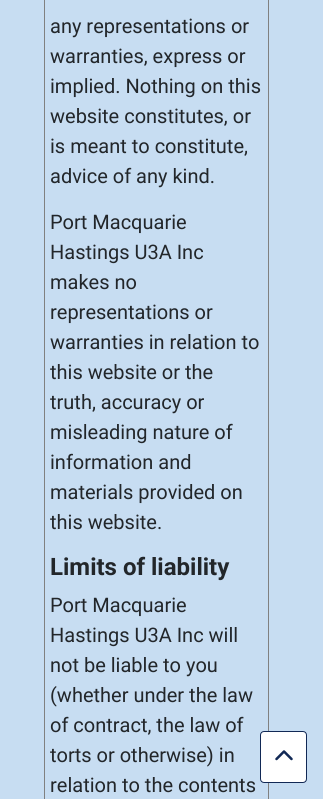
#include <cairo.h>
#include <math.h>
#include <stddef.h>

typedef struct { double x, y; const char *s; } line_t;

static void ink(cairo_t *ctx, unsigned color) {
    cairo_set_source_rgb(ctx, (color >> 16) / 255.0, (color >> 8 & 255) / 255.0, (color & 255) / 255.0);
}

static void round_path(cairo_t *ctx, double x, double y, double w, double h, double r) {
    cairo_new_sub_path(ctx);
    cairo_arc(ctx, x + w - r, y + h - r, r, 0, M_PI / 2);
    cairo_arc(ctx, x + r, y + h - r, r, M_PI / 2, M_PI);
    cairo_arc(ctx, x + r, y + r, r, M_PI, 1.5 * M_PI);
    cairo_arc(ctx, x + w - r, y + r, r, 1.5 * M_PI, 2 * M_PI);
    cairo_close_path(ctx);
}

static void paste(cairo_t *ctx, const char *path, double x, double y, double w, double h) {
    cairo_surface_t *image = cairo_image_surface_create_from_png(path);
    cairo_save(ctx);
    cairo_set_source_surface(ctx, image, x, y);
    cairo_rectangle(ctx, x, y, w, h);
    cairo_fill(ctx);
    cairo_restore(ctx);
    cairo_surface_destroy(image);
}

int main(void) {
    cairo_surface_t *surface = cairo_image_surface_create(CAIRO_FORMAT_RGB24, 323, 799);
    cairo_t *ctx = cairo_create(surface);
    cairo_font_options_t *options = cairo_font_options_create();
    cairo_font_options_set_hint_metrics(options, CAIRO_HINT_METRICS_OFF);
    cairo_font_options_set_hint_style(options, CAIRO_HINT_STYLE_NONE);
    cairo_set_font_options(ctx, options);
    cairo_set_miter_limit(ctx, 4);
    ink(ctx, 0xC7DDF2);
    cairo_paint(ctx);
    cairo_rectangle(ctx, 44.5, -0.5, 224, 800);
    ink(ctx, 0x808080);
    cairo_set_line_width(ctx, 1);
    cairo_stroke(ctx);
    cairo_select_font_face(ctx, "Roboto", CAIRO_FONT_SLANT_NORMAL, CAIRO_FONT_WEIGHT_NORMAL);
    cairo_set_font_size(ctx, 20);
    ink(ctx, 0x22262A);
    {
        static const line_t items[] = {
            {50, 33, "any representations or"},
            {50, 63, "warranties, express or"},
            {50, 93, "implied. Nothing on this"},
            {50, 123, "website constitutes, or"},
            {50, 153, "is meant to constitute,"},
            {50, 183, "advice of any kind."},
            {50, 229, "Port Macquarie"},
            {50, 259, "Hastings U3A Inc"},
            {50, 289, "makes no"},
            {50, 319, "representations or"},
            {50, 349, "warranties in relation to"},
            {50, 379, "this website or the"},
            {50, 409, "truth, accuracy or"},
            {50, 439, "misleading nature of"},
            {50, 469, "information and"},
            {50, 499, "materials provided on"},
            {50, 529, "this website."},
        };
        for (size_t i = 0; i < sizeof items / sizeof *items; i++) {
            cairo_move_to(ctx, items[i].x, items[i].y);
            cairo_show_text(ctx, items[i].s);
        }
    }
    cairo_select_font_face(ctx, "Roboto", CAIRO_FONT_SLANT_NORMAL, CAIRO_FONT_WEIGHT_BOLD);
    cairo_set_font_size(ctx, 24);
    cairo_move_to(ctx, 50, 575);
    cairo_show_text(ctx, "Limits of liability");
    cairo_select_font_face(ctx, "Roboto", CAIRO_FONT_SLANT_NORMAL, CAIRO_FONT_WEIGHT_NORMAL);
    cairo_set_font_size(ctx, 20);
    {
        static const line_t items[] = {
            {50, 612, "Port Macquarie"},
            {50, 642, "Hastings U3A Inc will"},
            {50, 672, "not be liable to you"},
            {50, 702, "(whether under the law"},
            {50, 732, "of contract, the law of"},
            {50, 762, "torts or otherwise) in"},
            {50, 792, "relation to the contents"},
        };
        for (size_t i = 0; i < sizeof items / sizeof *items; i++) {
            cairo_move_to(ctx, items[i].x, items[i].y);
            cairo_show_text(ctx, items[i].s);
        }
    }
    ink(ctx, 0xFFFFFF);
    round_path(ctx, 260.5, 731.5, 46, 51, 3.5);
    cairo_fill_preserve(ctx);
    ink(ctx, 0x112855);
    cairo_stroke(ctx);
    paste(ctx, "media/1.png", 275, 750, 18, 11);
    cairo_surface_write_to_png(surface, "image.png");
    cairo_font_options_destroy(options);
    cairo_destroy(ctx);
    cairo_surface_destroy(surface);
    return 0;
}
